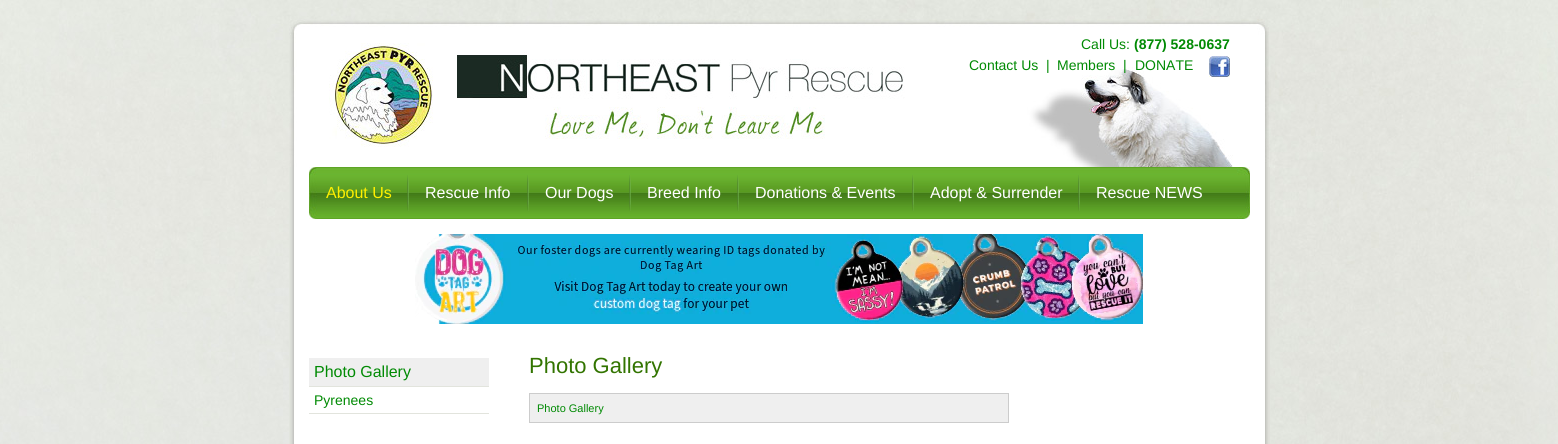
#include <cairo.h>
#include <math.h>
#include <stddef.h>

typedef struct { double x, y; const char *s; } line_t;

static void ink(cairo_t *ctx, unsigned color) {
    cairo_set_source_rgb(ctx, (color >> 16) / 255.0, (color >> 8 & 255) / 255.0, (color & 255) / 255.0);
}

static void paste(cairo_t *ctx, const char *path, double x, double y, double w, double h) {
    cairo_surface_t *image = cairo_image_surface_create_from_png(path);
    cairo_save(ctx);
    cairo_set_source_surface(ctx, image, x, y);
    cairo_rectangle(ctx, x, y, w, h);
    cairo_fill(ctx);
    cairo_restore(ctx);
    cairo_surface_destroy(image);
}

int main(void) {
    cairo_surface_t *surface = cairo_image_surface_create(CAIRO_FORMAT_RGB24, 1558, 444);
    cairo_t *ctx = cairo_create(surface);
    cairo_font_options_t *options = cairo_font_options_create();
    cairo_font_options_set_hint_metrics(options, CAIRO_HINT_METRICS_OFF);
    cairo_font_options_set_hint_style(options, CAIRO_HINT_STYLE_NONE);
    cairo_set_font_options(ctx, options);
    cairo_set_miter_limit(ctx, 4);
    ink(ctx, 0xFFFFFF);
    cairo_paint(ctx);
    paste(ctx, "media/1.png", 0, 0, 1558, 444);
    paste(ctx, "media/2.png", 289, 19, 980, 148);
    cairo_select_font_face(ctx, "Liberation Sans", CAIRO_FONT_SLANT_NORMAL, CAIRO_FONT_WEIGHT_NORMAL);
    cairo_set_font_size(ctx, 14);
    ink(ctx, 0x008A03);
    cairo_move_to(ctx, 1081, 49);
    cairo_show_text(ctx, "Call Us:");
    cairo_select_font_face(ctx, "Liberation Sans", CAIRO_FONT_SLANT_NORMAL, CAIRO_FONT_WEIGHT_BOLD);
    cairo_move_to(ctx, 1134, 49);
    cairo_show_text(ctx, "(877) 528-0637");
    cairo_select_font_face(ctx, "Liberation Sans", CAIRO_FONT_SLANT_NORMAL, CAIRO_FONT_WEIGHT_NORMAL);
    {
        static const line_t items[] = {
            {969, 70, "Contact Us"},
            {1046, 70, "|"},
            {1057, 70, "Members"},
            {1123, 70, "|"},
            {1135, 70, "DONATE"},
        };
        for (size_t i = 0; i < sizeof items / sizeof *items; i++) {
            cairo_move_to(ctx, items[i].x, items[i].y);
            cairo_show_text(ctx, items[i].s);
        }
    }
    paste(ctx, "media/3.png", 1209, 56, 21, 21);
    paste(ctx, "media/4.png", 289, 167, 981, 277);
    paste(ctx, "media/5.png", 309, 167, 941, 52);
    cairo_set_font_size(ctx, 16);
    ink(ctx, 0xFFF000);
    cairo_move_to(ctx, 326, 198);
    cairo_show_text(ctx, "About Us");
    paste(ctx, "media/6.png", 407, 175, 2, 36);
    ink(ctx, 0xFFFFFF);
    cairo_move_to(ctx, 425, 198);
    cairo_show_text(ctx, "Rescue Info");
    paste(ctx, "media/6.png", 527, 175, 2, 36);
    cairo_move_to(ctx, 545, 198);
    cairo_show_text(ctx, "Our Dogs");
    paste(ctx, "media/6.png", 629, 175, 2, 36);
    cairo_move_to(ctx, 647, 198);
    cairo_show_text(ctx, "Breed Info");
    paste(ctx, "media/6.png", 737, 175, 2, 36);
    cairo_move_to(ctx, 755, 198);
    cairo_show_text(ctx, "Donations & Events");
    paste(ctx, "media/6.png", 912, 175, 2, 36);
    cairo_move_to(ctx, 930, 198);
    cairo_show_text(ctx, "Adopt & Surrender");
    paste(ctx, "media/6.png", 1078, 175, 2, 36);
    cairo_move_to(ctx, 1096, 198);
    cairo_show_text(ctx, "Rescue NEWS");
    paste(ctx, "media/7.png", 415, 234, 728, 90);
    ink(ctx, 0xEFEFEF);
    cairo_rectangle(ctx, 309, 358, 180, 28);
    cairo_fill(ctx);
    ink(ctx, 0xE2E4DD);
    cairo_rectangle(ctx, 309, 386, 180, 1);
    cairo_fill(ctx);
    ink(ctx, 0x008A03);
    cairo_move_to(ctx, 314, 377);
    cairo_show_text(ctx, "Photo Gallery");
    ink(ctx, 0xE2E4DD);
    cairo_rectangle(ctx, 309, 413, 180, 1);
    cairo_fill(ctx);
    cairo_set_font_size(ctx, 14);
    ink(ctx, 0x008A03);
    cairo_move_to(ctx, 314, 405);
    cairo_show_text(ctx, "Pyrenees");
    cairo_set_font_size(ctx, 22);
    ink(ctx, 0x327400);
    cairo_move_to(ctx, 529, 373);
    cairo_show_text(ctx, "Photo Gallery");
    ink(ctx, 0xEFEFEF);
    cairo_rectangle(ctx, 529.5, 393.5, 479, 29);
    cairo_fill_preserve(ctx);
    ink(ctx, 0xCCCCCC);
    cairo_set_line_width(ctx, 1);
    cairo_stroke(ctx);
    cairo_set_font_size(ctx, 11);
    ink(ctx, 0x008A03);
    cairo_move_to(ctx, 537, 412);
    cairo_show_text(ctx, "Photo Gallery");
    cairo_surface_write_to_png(surface, "image.png");
    cairo_font_options_destroy(options);
    cairo_destroy(ctx);
    cairo_surface_destroy(surface);
    return 0;
}
